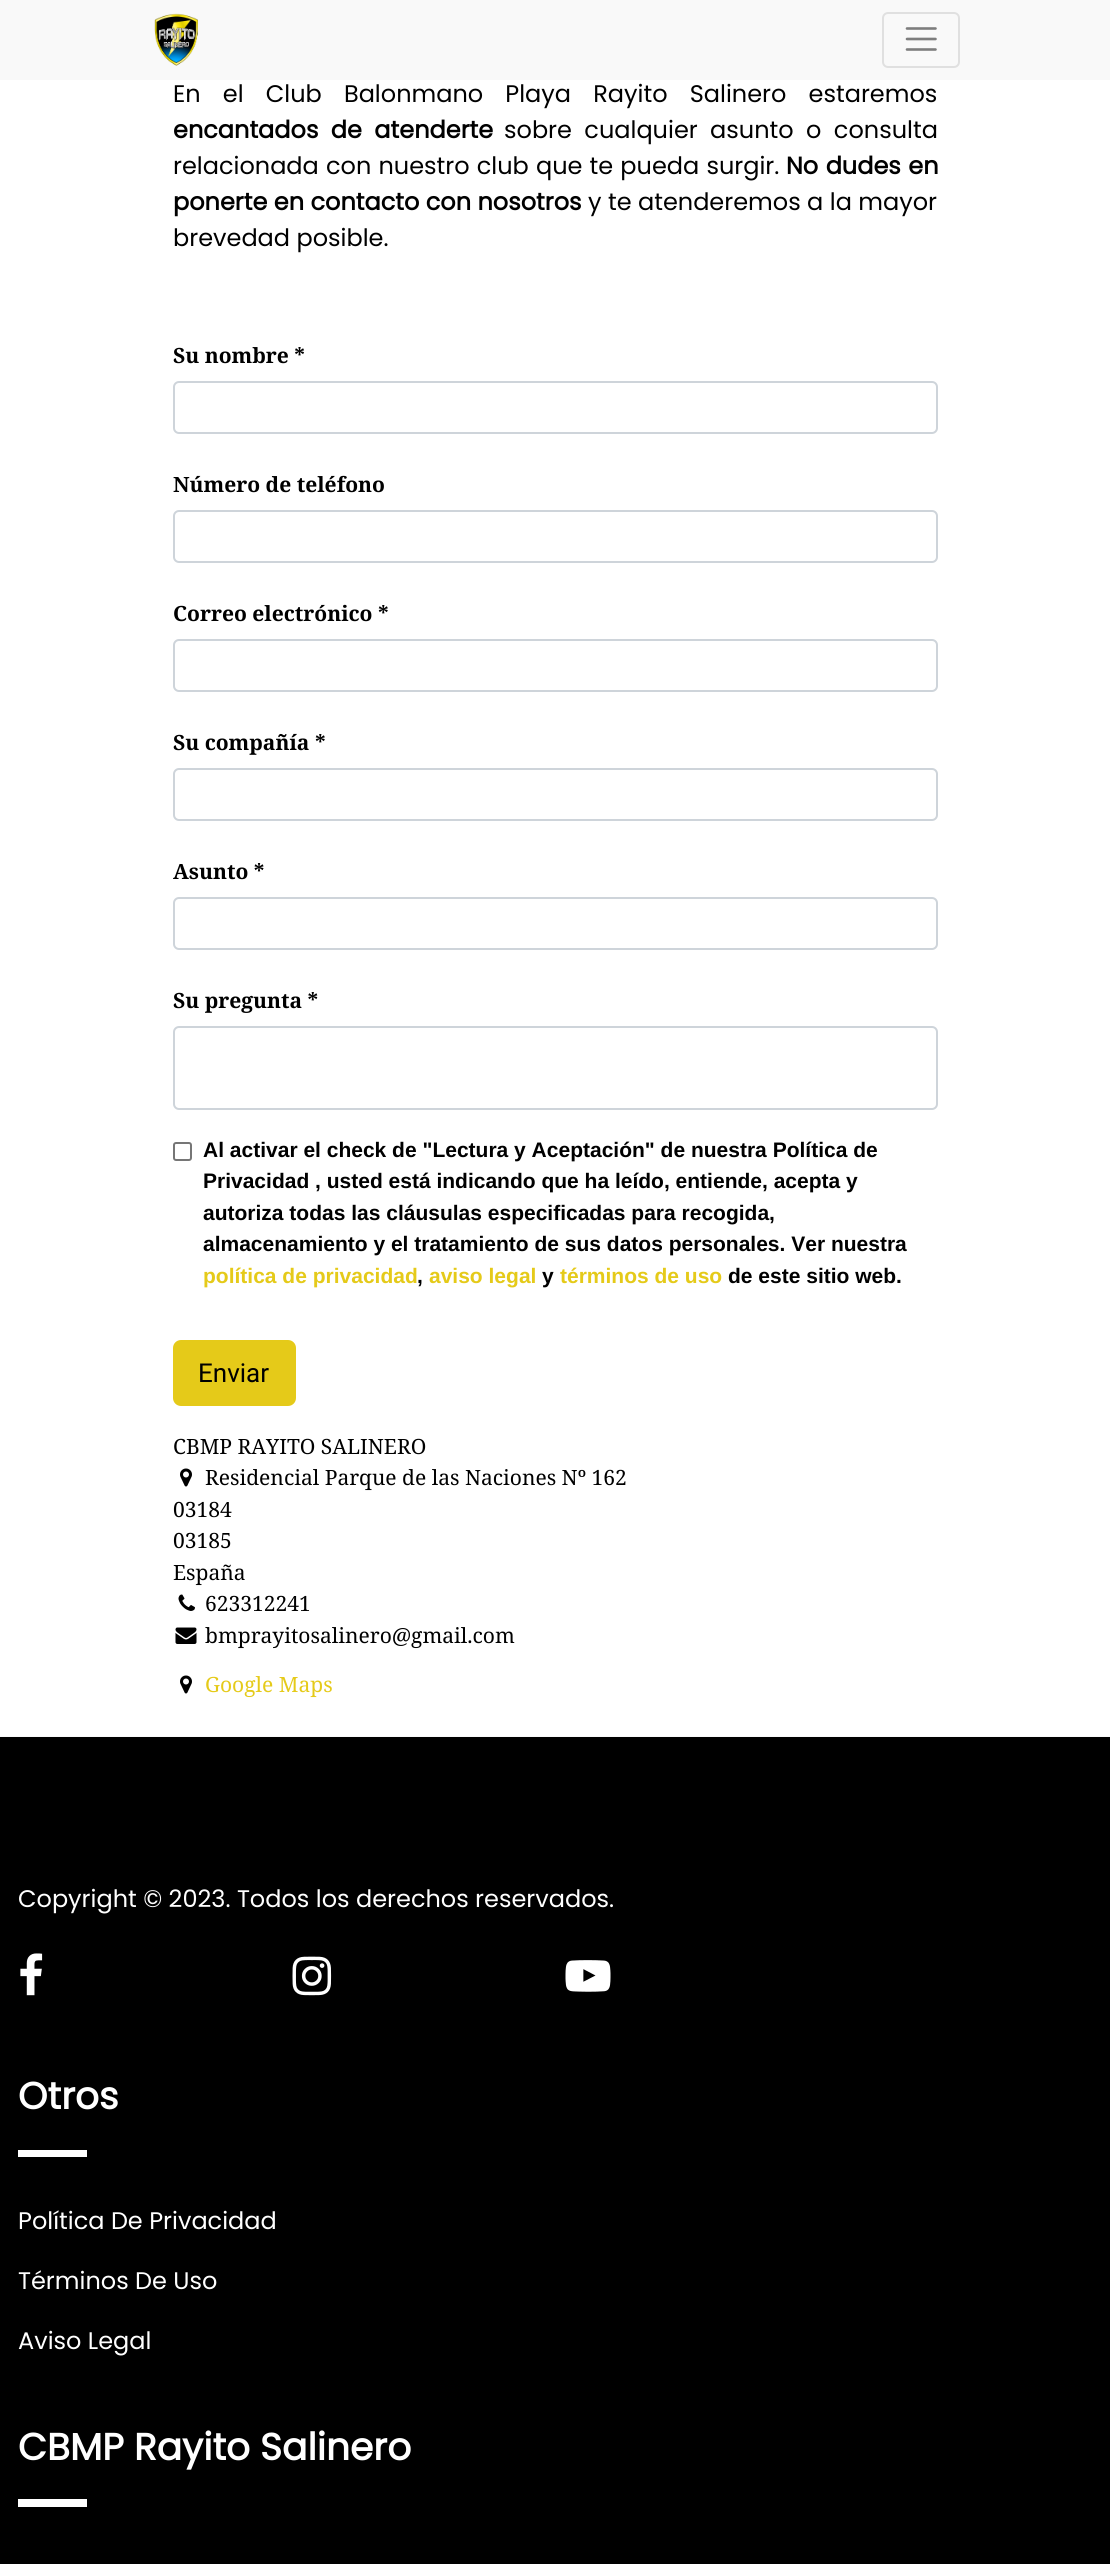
#include <cairo.h>
#include <math.h>
#include <stddef.h>

typedef struct { double x, y; const char *s; } line_t;

static void ink(cairo_t *ctx, unsigned color) {
    cairo_set_source_rgb(ctx, (color >> 16) / 255.0, (color >> 8 & 255) / 255.0, (color & 255) / 255.0);
}

static void write_spaced(cairo_t *ctx, double x, double y, const char *s, double letter, double word) {
    cairo_move_to(ctx, x, y);
    while (*s) {
        char ch[5] = {0};
        int n = 0;
        do ch[n++] = *s++; while ((*s & 0xC0) == 0x80);
        cairo_show_text(ctx, ch);
        cairo_rel_move_to(ctx, letter + word * (*ch == ' '), 0);
    }
}

static void round_path(cairo_t *ctx, double x, double y, double w, double h, double r) {
    cairo_new_sub_path(ctx);
    cairo_arc(ctx, x + w - r, y + h - r, r, 0, M_PI / 2);
    cairo_arc(ctx, x + r, y + h - r, r, M_PI / 2, M_PI);
    cairo_arc(ctx, x + r, y + r, r, M_PI, 1.5 * M_PI);
    cairo_arc(ctx, x + w - r, y + r, r, 1.5 * M_PI, 2 * M_PI);
    cairo_close_path(ctx);
}

static void paste(cairo_t *ctx, const char *path, double x, double y, double w, double h) {
    cairo_surface_t *image = cairo_image_surface_create_from_png(path);
    cairo_save(ctx);
    cairo_set_source_surface(ctx, image, x, y);
    cairo_rectangle(ctx, x, y, w, h);
    cairo_fill(ctx);
    cairo_restore(ctx);
    cairo_surface_destroy(image);
}

int main(void) {
    cairo_surface_t *surface = cairo_image_surface_create(CAIRO_FORMAT_RGB24, 1110, 2564);
    cairo_t *ctx = cairo_create(surface);
    cairo_font_options_t *options = cairo_font_options_create();
    cairo_font_options_set_hint_metrics(options, CAIRO_HINT_METRICS_OFF);
    cairo_font_options_set_hint_style(options, CAIRO_HINT_STYLE_NONE);
    cairo_set_font_options(ctx, options);
    cairo_set_miter_limit(ctx, 4);
    ink(ctx, 0xFFFFFF);
    cairo_paint(ctx);
    ink(ctx, 0xF9F9F9);
    cairo_rectangle(ctx, 0, 0, 1110, 80);
    cairo_fill(ctx);
    paste(ctx, "media/1.png", 154, 13, 44, 53);
    round_path(ctx, 883, 13, 76, 54, 5);
    ink(ctx, 0xE0E0E0);
    cairo_stroke(ctx);
    cairo_new_path(ctx);
    cairo_move_to(ctx, 907, 28.5);
    cairo_line_to(ctx, 935.5, 28.5);
    cairo_move_to(ctx, 907, 39);
    cairo_line_to(ctx, 935.5, 39);
    cairo_move_to(ctx, 907, 49.5);
    cairo_line_to(ctx, 935.5, 49.5);
    ink(ctx, 0x7D7D7D);
    cairo_set_line_width(ctx, 2.6);
    cairo_set_line_cap(ctx, CAIRO_LINE_CAP_ROUND);
    cairo_stroke(ctx);
    cairo_select_font_face(ctx, "Poppins", CAIRO_FONT_SLANT_NORMAL, CAIRO_FONT_WEIGHT_NORMAL);
    cairo_set_font_size(ctx, 24);
    ink(ctx, 0x000000);
    write_spaced(ctx, 173, 102, "En el Club Balonmano Playa Rayito Salinero estaremos", 0, 15.75);
    cairo_select_font_face(ctx, "Poppins", CAIRO_FONT_SLANT_NORMAL, CAIRO_FONT_WEIGHT_BOLD);
    write_spaced(ctx, 173, 138, "encantados de atenderte", 0, 6);
    cairo_select_font_face(ctx, "Poppins", CAIRO_FONT_SLANT_NORMAL, CAIRO_FONT_WEIGHT_NORMAL);
    write_spaced(ctx, 504, 138, "sobre cualquier asunto o consulta", 0, 6);
    write_spaced(ctx, 173, 174, "relacionada con nuestro club que te pueda surgir.", 0, 0.75);
    cairo_select_font_face(ctx, "Poppins", CAIRO_FONT_SLANT_NORMAL, CAIRO_FONT_WEIGHT_BOLD);
    write_spaced(ctx, 786, 174, "No dudes en", 0, 1);
    cairo_move_to(ctx, 173, 210);
    cairo_show_text(ctx, "ponerte en contacto con nosotros");
    cairo_select_font_face(ctx, "Poppins", CAIRO_FONT_SLANT_NORMAL, CAIRO_FONT_WEIGHT_NORMAL);
    cairo_move_to(ctx, 588, 210);
    cairo_show_text(ctx, "y te atenderemos a la mayor");
    cairo_move_to(ctx, 173, 246);
    cairo_show_text(ctx, "brevedad posible.");
    cairo_select_font_face(ctx, "Noto Serif", CAIRO_FONT_SLANT_NORMAL, CAIRO_FONT_WEIGHT_BOLD);
    cairo_set_font_size(ctx, 21);
    cairo_move_to(ctx, 173, 363);
    cairo_show_text(ctx, "Su nombre *");
    round_path(ctx, 174, 382, 763, 51, 5);
    ink(ctx, 0xCED4DA);
    cairo_set_line_width(ctx, 2);
    cairo_set_line_cap(ctx, CAIRO_LINE_CAP_BUTT);
    cairo_stroke(ctx);
    ink(ctx, 0x000000);
    cairo_move_to(ctx, 173, 492);
    cairo_show_text(ctx, "Número de teléfono");
    round_path(ctx, 174, 511, 763, 51, 5);
    ink(ctx, 0xCED4DA);
    cairo_stroke(ctx);
    ink(ctx, 0x000000);
    cairo_move_to(ctx, 173, 621);
    cairo_show_text(ctx, "Correo electrónico *");
    round_path(ctx, 174, 640, 763, 51, 5);
    ink(ctx, 0xCED4DA);
    cairo_stroke(ctx);
    ink(ctx, 0x000000);
    cairo_move_to(ctx, 173, 750);
    cairo_show_text(ctx, "Su compañía *");
    round_path(ctx, 174, 769, 763, 51, 5);
    ink(ctx, 0xCED4DA);
    cairo_stroke(ctx);
    ink(ctx, 0x000000);
    cairo_move_to(ctx, 173, 879);
    cairo_show_text(ctx, "Asunto *");
    round_path(ctx, 174, 898, 763, 51, 5);
    ink(ctx, 0xCED4DA);
    cairo_stroke(ctx);
    ink(ctx, 0x000000);
    cairo_move_to(ctx, 173, 1008);
    cairo_show_text(ctx, "Su pregunta *");
    round_path(ctx, 174, 1027, 763, 82, 5);
    ink(ctx, 0xCED4DA);
    cairo_stroke(ctx);
    round_path(ctx, 174, 1143, 17, 17, 2);
    ink(ctx, 0x767676);
    cairo_stroke(ctx);
    cairo_select_font_face(ctx, "Liberation Sans", CAIRO_FONT_SLANT_NORMAL, CAIRO_FONT_WEIGHT_BOLD);
    ink(ctx, 0x000000);
    {
        static const line_t items[] = {
            {203, 1157, "Al activar el check de \"Lectura y Aceptación\" de nuestra Política de"},
            {203, 1188, "Privacidad , usted está indicando que ha leído, entiende, acepta y"},
            {203, 1220, "autoriza todas las cláusulas especificadas para recogida,"},
            {203, 1251, "almacenamiento y el tratamiento de sus datos personales. Ver nuestra"},
        };
        for (size_t i = 0; i < sizeof items / sizeof *items; i++) {
            cairo_move_to(ctx, items[i].x, items[i].y);
            cairo_show_text(ctx, items[i].s);
        }
    }
    ink(ctx, 0xE5CA19);
    cairo_move_to(ctx, 203, 1283);
    cairo_show_text(ctx, "política de privacidad");
    ink(ctx, 0x000000);
    cairo_move_to(ctx, 417, 1283);
    cairo_show_text(ctx, ",");
    ink(ctx, 0xE5CA19);
    cairo_move_to(ctx, 429, 1283);
    cairo_show_text(ctx, "aviso legal");
    ink(ctx, 0x000000);
    cairo_move_to(ctx, 542, 1283);
    cairo_show_text(ctx, "y");
    ink(ctx, 0xE5CA19);
    cairo_move_to(ctx, 560, 1283);
    cairo_show_text(ctx, "términos de uso");
    ink(ctx, 0x000000);
    cairo_move_to(ctx, 728, 1283);
    cairo_show_text(ctx, "de este sitio web.");
    ink(ctx, 0xE5CA19);
    round_path(ctx, 174, 1341, 121, 64, 7);
    cairo_fill_preserve(ctx);
    cairo_stroke(ctx);
    cairo_select_font_face(ctx, "Roboto", CAIRO_FONT_SLANT_NORMAL, CAIRO_FONT_WEIGHT_NORMAL);
    cairo_set_font_size(ctx, 26);
    ink(ctx, 0x000000);
    cairo_move_to(ctx, 198, 1382);
    cairo_show_text(ctx, "Enviar");
    cairo_select_font_face(ctx, "Noto Serif", CAIRO_FONT_SLANT_NORMAL, CAIRO_FONT_WEIGHT_NORMAL);
    cairo_set_font_size(ctx, 21);
    cairo_move_to(ctx, 173, 1454);
    cairo_show_text(ctx, "CBMP RAYITO SALINERO");
    paste(ctx, "media/2.png", 180, 1468, 12, 19);
    {
        static const line_t items[] = {
            {205, 1485, "Residencial Parque de las Naciones Nº 162"},
            {173, 1517, "03184"},
            {173, 1548, "03185"},
            {173, 1580, "España"},
        };
        for (size_t i = 0; i < sizeof items / sizeof *items; i++) {
            cairo_move_to(ctx, items[i].x, items[i].y);
            cairo_show_text(ctx, items[i].s);
        }
    }
    paste(ctx, "media/3.png", 178, 1594, 17, 17);
    cairo_move_to(ctx, 205, 1611);
    cairo_show_text(ctx, "623312241");
    paste(ctx, "media/4.png", 175, 1627, 22, 17);
    cairo_move_to(ctx, 205, 1643);
    cairo_show_text(ctx, "bmprayitosalinero@gmail.com");
    paste(ctx, "media/2.png", 180, 1675, 12, 19);
    ink(ctx, 0xE5CA19);
    cairo_move_to(ctx, 205, 1692);
    cairo_show_text(ctx, "Google Maps");
    ink(ctx, 0xF9F9F9);
    cairo_rectangle(ctx, 0, 1736, 1110, 1);
    cairo_fill(ctx);
    ink(ctx, 0x000000);
    cairo_rectangle(ctx, 0, 1737, 1110, 827);
    cairo_fill(ctx);
    cairo_select_font_face(ctx, "Poppins", CAIRO_FONT_SLANT_NORMAL, CAIRO_FONT_WEIGHT_NORMAL);
    cairo_set_font_size(ctx, 24);
    ink(ctx, 0xFFFFFF);
    cairo_move_to(ctx, 18, 1907);
    cairo_show_text(ctx, "Copyright © 2023. Todos los derechos reservados.");
    paste(ctx, "media/5.png", 20, 1953, 23, 43);
    paste(ctx, "media/6.png", 292, 1956, 40, 40);
    paste(ctx, "media/7.png", 565, 1960, 46, 32);
    cairo_select_font_face(ctx, "Poppins", CAIRO_FONT_SLANT_NORMAL, CAIRO_FONT_WEIGHT_BOLD);
    cairo_set_font_size(ctx, 37.5);
    cairo_move_to(ctx, 18, 2109);
    cairo_show_text(ctx, "Otros");
    cairo_rectangle(ctx, 18, 2150, 69, 7);
    cairo_fill(ctx);
    cairo_select_font_face(ctx, "Poppins", CAIRO_FONT_SLANT_NORMAL, CAIRO_FONT_WEIGHT_NORMAL);
    cairo_set_font_size(ctx, 24);
    {
        static const line_t items[] = {
            {18, 2229, "Política De Privacidad"},
            {18, 2289, "Términos De Uso"},
            {18, 2349, "Aviso Legal"},
        };
        for (size_t i = 0; i < sizeof items / sizeof *items; i++) {
            cairo_move_to(ctx, items[i].x, items[i].y);
            cairo_show_text(ctx, items[i].s);
        }
    }
    cairo_select_font_face(ctx, "Poppins", CAIRO_FONT_SLANT_NORMAL, CAIRO_FONT_WEIGHT_BOLD);
    cairo_set_font_size(ctx, 37.5);
    cairo_move_to(ctx, 18, 2460);
    cairo_show_text(ctx, "CBMP Rayito Salinero");
    cairo_rectangle(ctx, 18, 2499, 69, 8);
    cairo_fill(ctx);
    cairo_surface_write_to_png(surface, "image.png");
    cairo_font_options_destroy(options);
    cairo_destroy(ctx);
    cairo_surface_destroy(surface);
    return 0;
}
